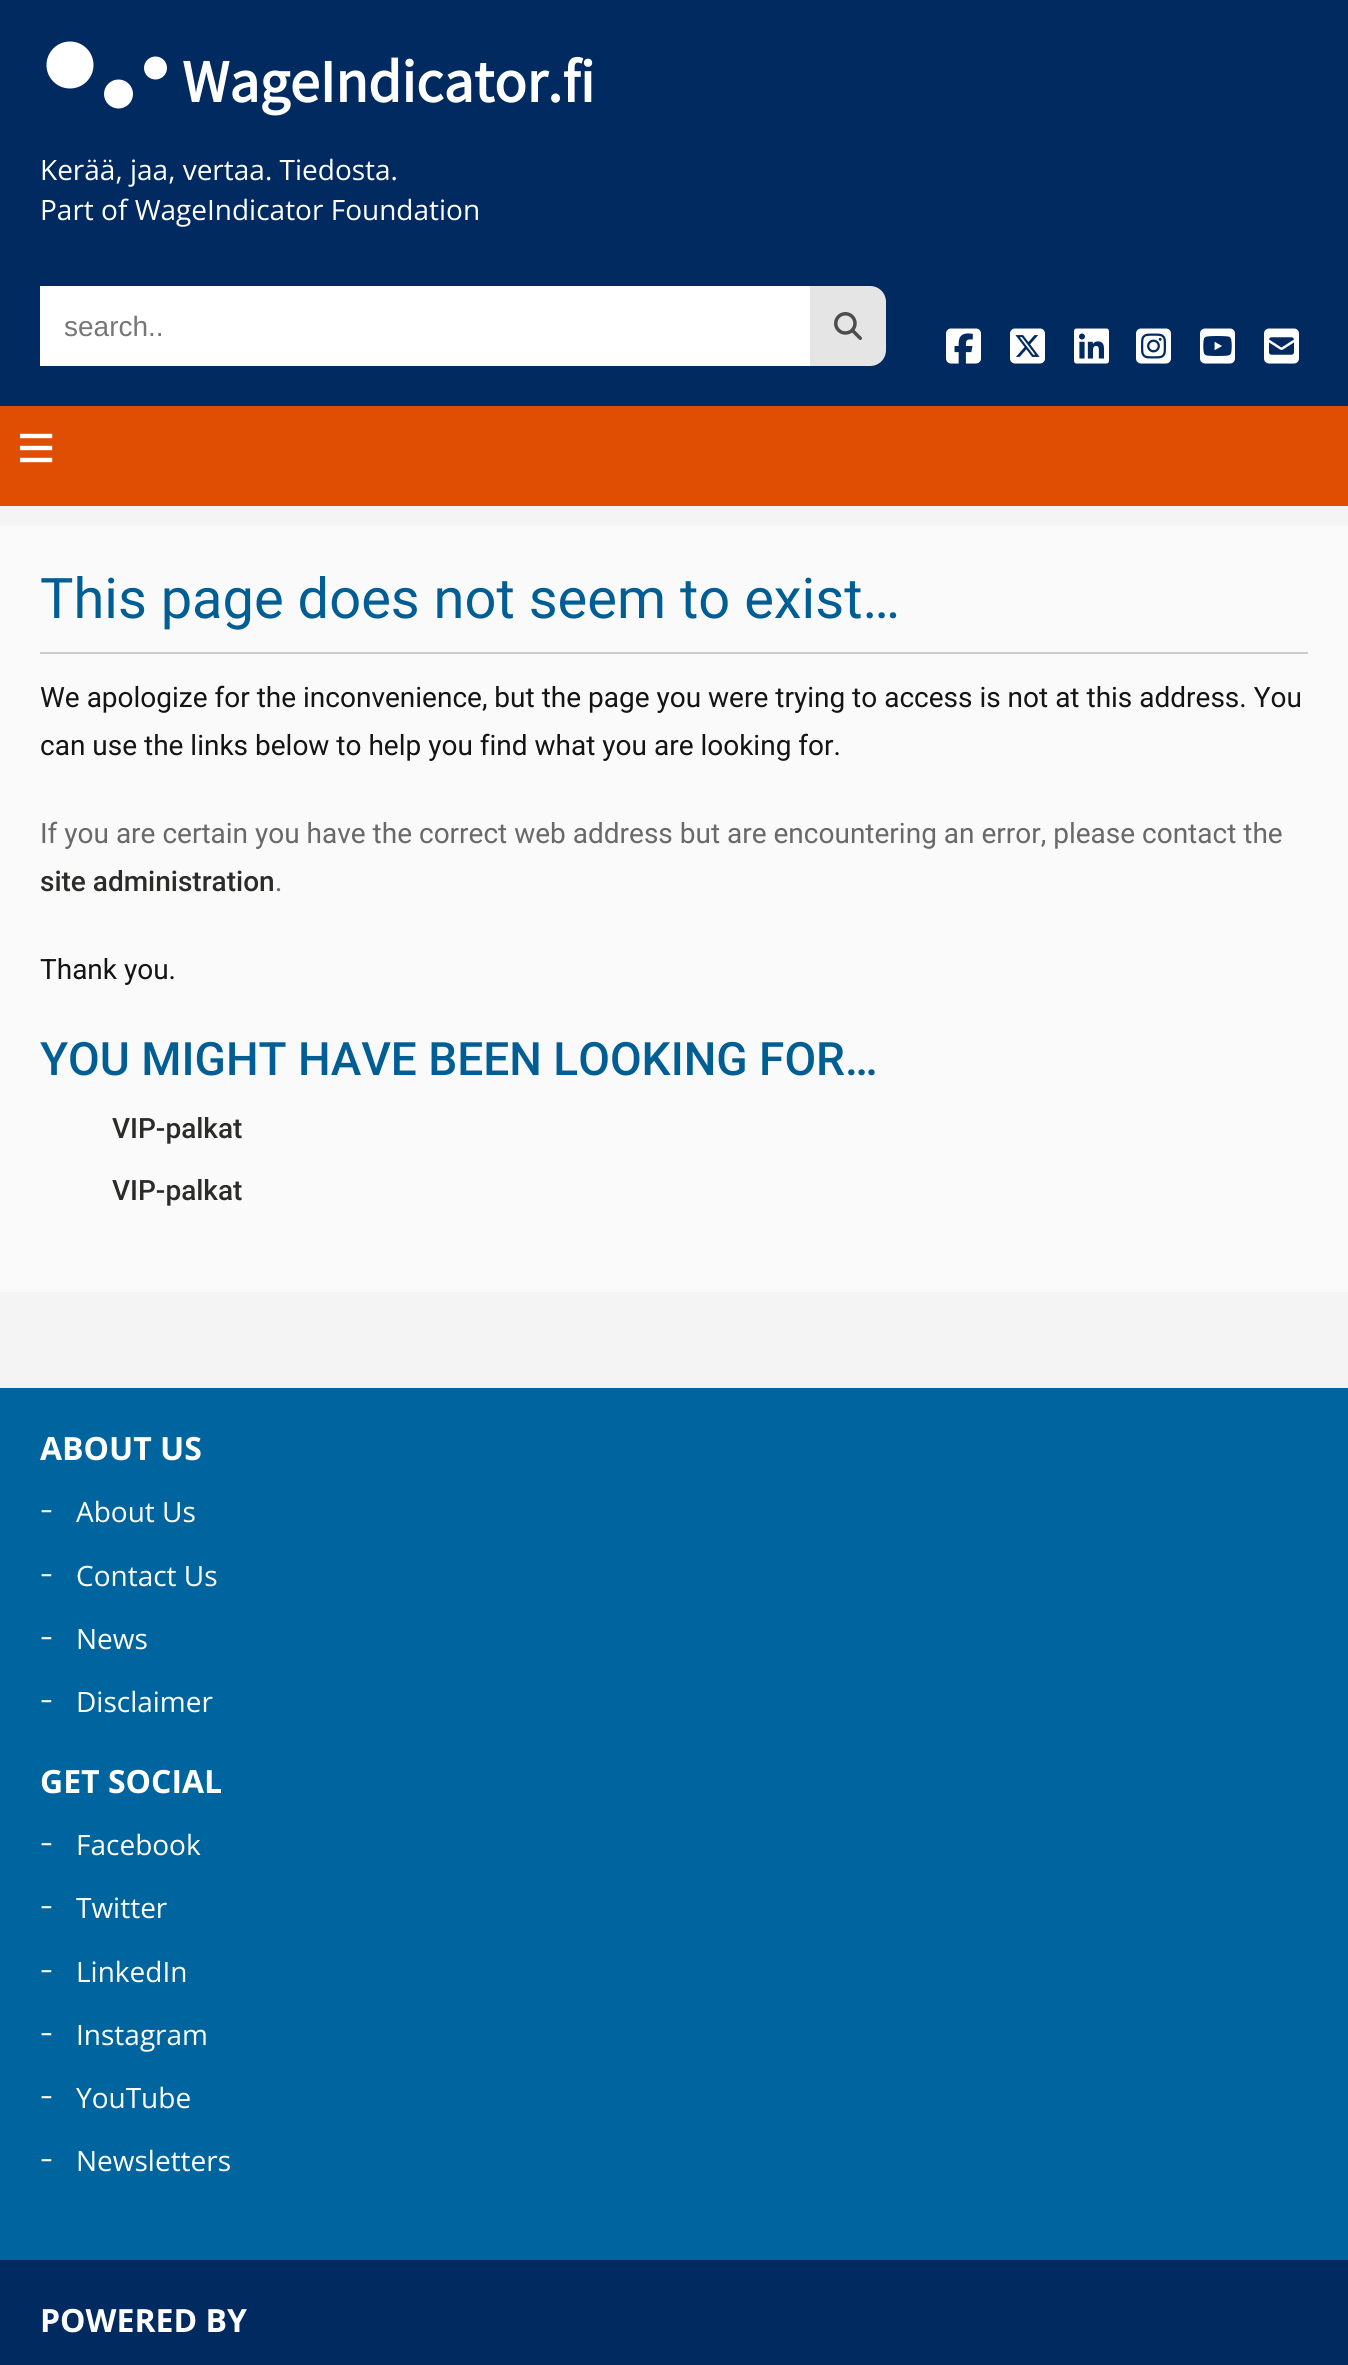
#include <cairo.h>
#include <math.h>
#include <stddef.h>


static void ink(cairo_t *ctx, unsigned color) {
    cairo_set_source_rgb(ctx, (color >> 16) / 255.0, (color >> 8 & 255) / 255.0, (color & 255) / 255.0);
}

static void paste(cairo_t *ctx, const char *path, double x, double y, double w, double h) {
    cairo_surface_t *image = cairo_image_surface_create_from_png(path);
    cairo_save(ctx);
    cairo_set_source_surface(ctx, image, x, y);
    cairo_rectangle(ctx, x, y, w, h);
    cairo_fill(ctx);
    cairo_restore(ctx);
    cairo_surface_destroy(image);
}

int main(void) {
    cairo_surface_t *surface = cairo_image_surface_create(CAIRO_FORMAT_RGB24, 1348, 2365);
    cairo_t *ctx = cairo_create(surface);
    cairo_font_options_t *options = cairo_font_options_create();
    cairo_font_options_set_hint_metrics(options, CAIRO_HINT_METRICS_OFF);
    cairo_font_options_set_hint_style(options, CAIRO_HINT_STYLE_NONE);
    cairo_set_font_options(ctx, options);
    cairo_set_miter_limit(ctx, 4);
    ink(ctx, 0xF4F4F4);
    cairo_paint(ctx);
    ink(ctx, 0x002A60);
    cairo_rectangle(ctx, 0, 0, 1348, 406);
    cairo_fill(ctx);
    ink(ctx, 0xFFFFFF);
    cairo_arc(ctx, 70, 65, 23.5, 0, 2 * M_PI);
    cairo_fill(ctx);
    cairo_arc(ctx, 118.5, 94, 14.5, 0, 2 * M_PI);
    cairo_fill(ctx);
    cairo_arc(ctx, 155.5, 68, 11.5, 0, 2 * M_PI);
    cairo_fill(ctx);
    cairo_select_font_face(ctx, "Source Sans Pro", CAIRO_FONT_SLANT_NORMAL, CAIRO_FONT_WEIGHT_BOLD);
    cairo_set_font_size(ctx, 60);
    cairo_move_to(ctx, 182, 102);
    cairo_show_text(ctx, "WageIndicator.fi");
    cairo_select_font_face(ctx, "Open Sans", CAIRO_FONT_SLANT_NORMAL, CAIRO_FONT_WEIGHT_NORMAL);
    cairo_set_font_size(ctx, 28);
    cairo_move_to(ctx, 40, 180);
    cairo_show_text(ctx, "Kerää, jaa, vertaa. Tiedosta.");
    cairo_move_to(ctx, 40, 220);
    cairo_show_text(ctx, "Part of WageIndicator Foundation");
    cairo_rectangle(ctx, 40, 286, 770, 80);
    cairo_fill(ctx);
    cairo_select_font_face(ctx, "Liberation Sans", CAIRO_FONT_SLANT_NORMAL, CAIRO_FONT_WEIGHT_NORMAL);
    ink(ctx, 0x777777);
    cairo_move_to(ctx, 64, 336);
    cairo_show_text(ctx, "search..");
    ink(ctx, 0xE5E5E5);
    cairo_new_path(ctx);
    cairo_move_to(ctx, 810, 286);
    cairo_line_to(ctx, 870, 286);
    cairo_curve_to(ctx, 879, 286, 886, 293, 886, 302);
    cairo_line_to(ctx, 886, 350);
    cairo_curve_to(ctx, 886, 359, 879, 366, 870, 366);
    cairo_line_to(ctx, 810, 366);
    cairo_close_path(ctx);
    cairo_fill(ctx);
    paste(ctx, "media/1.png", 834, 312, 28, 28);
    paste(ctx, "media/2.png", 946, 328, 35, 36);
    paste(ctx, "media/3.png", 1010, 328, 35, 36);
    paste(ctx, "media/4.png", 1074, 328, 35, 36);
    paste(ctx, "media/5.png", 1136, 328, 35, 36);
    paste(ctx, "media/6.png", 1200, 328, 35, 36);
    paste(ctx, "media/7.png", 1264, 328, 35, 36);
    ink(ctx, 0xE04E04);
    cairo_rectangle(ctx, 0, 406, 1348, 100);
    cairo_fill(ctx);
    paste(ctx, "media/8.png", 20, 433, 33, 30);
    ink(ctx, 0xFAFAFA);
    cairo_rectangle(ctx, 0, 526, 1348, 766);
    cairo_fill(ctx);
    ink(ctx, 0xCCCCCC);
    cairo_rectangle(ctx, 40, 652, 1268, 2);
    cairo_fill(ctx);
    cairo_select_font_face(ctx, "Roboto", CAIRO_FONT_SLANT_NORMAL, CAIRO_FONT_WEIGHT_NORMAL);
    cairo_set_font_size(ctx, 56);
    ink(ctx, 0x005E94);
    cairo_move_to(ctx, 40, 618);
    cairo_show_text(ctx, "This page does not seem to exist…");
    cairo_set_font_size(ctx, 28);
    ink(ctx, 0x141414);
    cairo_move_to(ctx, 40, 707);
    cairo_show_text(ctx, "We apologize for the inconvenience, but the page you were trying to access is not at this address. You");
    cairo_move_to(ctx, 40, 755);
    cairo_show_text(ctx, "can use the links below to help you find what you are looking for.");
    ink(ctx, 0x696969);
    cairo_move_to(ctx, 40, 843);
    cairo_show_text(ctx, "If you are certain you have the correct web address but are encountering an error, please contact the");
    cairo_select_font_face(ctx, "Roboto Medium", CAIRO_FONT_SLANT_NORMAL, CAIRO_FONT_WEIGHT_NORMAL);
    ink(ctx, 0x2B2B2A);
    cairo_move_to(ctx, 40, 891);
    cairo_show_text(ctx, "site administration");
    cairo_select_font_face(ctx, "Roboto", CAIRO_FONT_SLANT_NORMAL, CAIRO_FONT_WEIGHT_NORMAL);
    ink(ctx, 0x696969);
    cairo_move_to(ctx, 275, 891);
    cairo_show_text(ctx, ".");
    ink(ctx, 0x141414);
    cairo_move_to(ctx, 40, 979);
    cairo_show_text(ctx, "Thank you.");
    cairo_select_font_face(ctx, "Roboto Medium", CAIRO_FONT_SLANT_NORMAL, CAIRO_FONT_WEIGHT_NORMAL);
    cairo_set_font_size(ctx, 46);
    ink(ctx, 0x005E94);
    cairo_move_to(ctx, 40, 1075);
    cairo_show_text(ctx, "YOU MIGHT HAVE BEEN LOOKING FOR…");
    cairo_set_font_size(ctx, 28);
    ink(ctx, 0x2B2B2A);
    cairo_move_to(ctx, 112, 1138);
    cairo_show_text(ctx, "VIP-palkat");
    cairo_move_to(ctx, 112, 1200);
    cairo_show_text(ctx, "VIP-palkat");
    ink(ctx, 0x00659E);
    cairo_rectangle(ctx, 0, 1388, 1348, 872);
    cairo_fill(ctx);
    cairo_select_font_face(ctx, "Open Sans", CAIRO_FONT_SLANT_NORMAL, CAIRO_FONT_WEIGHT_BOLD);
    cairo_set_font_size(ctx, 32);
    ink(ctx, 0xFFFFFF);
    cairo_move_to(ctx, 40, 1460);
    cairo_show_text(ctx, "ABOUT US");
    cairo_select_font_face(ctx, "Noto Sans Light", CAIRO_FONT_SLANT_NORMAL, CAIRO_FONT_WEIGHT_NORMAL);
    cairo_set_font_size(ctx, 40);
    cairo_move_to(ctx, 40, 1522);
    cairo_show_text(ctx, "⁃");
    cairo_select_font_face(ctx, "Open Sans", CAIRO_FONT_SLANT_NORMAL, CAIRO_FONT_WEIGHT_NORMAL);
    cairo_set_font_size(ctx, 28);
    cairo_move_to(ctx, 76, 1522);
    cairo_show_text(ctx, "About Us");
    cairo_select_font_face(ctx, "Noto Sans Light", CAIRO_FONT_SLANT_NORMAL, CAIRO_FONT_WEIGHT_NORMAL);
    cairo_set_font_size(ctx, 40);
    cairo_move_to(ctx, 40, 1586);
    cairo_show_text(ctx, "⁃");
    cairo_select_font_face(ctx, "Open Sans", CAIRO_FONT_SLANT_NORMAL, CAIRO_FONT_WEIGHT_NORMAL);
    cairo_set_font_size(ctx, 28);
    cairo_move_to(ctx, 76, 1586);
    cairo_show_text(ctx, "Contact Us");
    cairo_select_font_face(ctx, "Noto Sans Light", CAIRO_FONT_SLANT_NORMAL, CAIRO_FONT_WEIGHT_NORMAL);
    cairo_set_font_size(ctx, 40);
    cairo_move_to(ctx, 40, 1649);
    cairo_show_text(ctx, "⁃");
    cairo_select_font_face(ctx, "Open Sans", CAIRO_FONT_SLANT_NORMAL, CAIRO_FONT_WEIGHT_NORMAL);
    cairo_set_font_size(ctx, 28);
    cairo_move_to(ctx, 76, 1649);
    cairo_show_text(ctx, "News");
    cairo_select_font_face(ctx, "Noto Sans Light", CAIRO_FONT_SLANT_NORMAL, CAIRO_FONT_WEIGHT_NORMAL);
    cairo_set_font_size(ctx, 40);
    cairo_move_to(ctx, 40, 1712);
    cairo_show_text(ctx, "⁃");
    cairo_select_font_face(ctx, "Open Sans", CAIRO_FONT_SLANT_NORMAL, CAIRO_FONT_WEIGHT_NORMAL);
    cairo_set_font_size(ctx, 28);
    cairo_move_to(ctx, 76, 1712);
    cairo_show_text(ctx, "Disclaimer");
    cairo_select_font_face(ctx, "Open Sans", CAIRO_FONT_SLANT_NORMAL, CAIRO_FONT_WEIGHT_BOLD);
    cairo_set_font_size(ctx, 32);
    cairo_move_to(ctx, 40, 1793);
    cairo_show_text(ctx, "GET SOCIAL");
    cairo_select_font_face(ctx, "Noto Sans Light", CAIRO_FONT_SLANT_NORMAL, CAIRO_FONT_WEIGHT_NORMAL);
    cairo_set_font_size(ctx, 40);
    cairo_move_to(ctx, 40, 1855);
    cairo_show_text(ctx, "⁃");
    cairo_select_font_face(ctx, "Open Sans", CAIRO_FONT_SLANT_NORMAL, CAIRO_FONT_WEIGHT_NORMAL);
    cairo_set_font_size(ctx, 28);
    cairo_move_to(ctx, 76, 1855);
    cairo_show_text(ctx, "Facebook");
    cairo_select_font_face(ctx, "Noto Sans Light", CAIRO_FONT_SLANT_NORMAL, CAIRO_FONT_WEIGHT_NORMAL);
    cairo_set_font_size(ctx, 40);
    cairo_move_to(ctx, 40, 1918);
    cairo_show_text(ctx, "⁃");
    cairo_select_font_face(ctx, "Open Sans", CAIRO_FONT_SLANT_NORMAL, CAIRO_FONT_WEIGHT_NORMAL);
    cairo_set_font_size(ctx, 28);
    cairo_move_to(ctx, 76, 1918);
    cairo_show_text(ctx, "Twitter");
    cairo_select_font_face(ctx, "Noto Sans Light", CAIRO_FONT_SLANT_NORMAL, CAIRO_FONT_WEIGHT_NORMAL);
    cairo_set_font_size(ctx, 40);
    cairo_move_to(ctx, 40, 1982);
    cairo_show_text(ctx, "⁃");
    cairo_select_font_face(ctx, "Open Sans", CAIRO_FONT_SLANT_NORMAL, CAIRO_FONT_WEIGHT_NORMAL);
    cairo_set_font_size(ctx, 28);
    cairo_move_to(ctx, 76, 1982);
    cairo_show_text(ctx, "LinkedIn");
    cairo_select_font_face(ctx, "Noto Sans Light", CAIRO_FONT_SLANT_NORMAL, CAIRO_FONT_WEIGHT_NORMAL);
    cairo_set_font_size(ctx, 40);
    cairo_move_to(ctx, 40, 2045);
    cairo_show_text(ctx, "⁃");
    cairo_select_font_face(ctx, "Open Sans", CAIRO_FONT_SLANT_NORMAL, CAIRO_FONT_WEIGHT_NORMAL);
    cairo_set_font_size(ctx, 28);
    cairo_move_to(ctx, 76, 2045);
    cairo_show_text(ctx, "Instagram");
    cairo_select_font_face(ctx, "Noto Sans Light", CAIRO_FONT_SLANT_NORMAL, CAIRO_FONT_WEIGHT_NORMAL);
    cairo_set_font_size(ctx, 40);
    cairo_move_to(ctx, 40, 2108);
    cairo_show_text(ctx, "⁃");
    cairo_select_font_face(ctx, "Open Sans", CAIRO_FONT_SLANT_NORMAL, CAIRO_FONT_WEIGHT_NORMAL);
    cairo_set_font_size(ctx, 28);
    cairo_move_to(ctx, 76, 2108);
    cairo_show_text(ctx, "YouTube");
    cairo_select_font_face(ctx, "Noto Sans Light", CAIRO_FONT_SLANT_NORMAL, CAIRO_FONT_WEIGHT_NORMAL);
    cairo_set_font_size(ctx, 40);
    cairo_move_to(ctx, 40, 2171);
    cairo_show_text(ctx, "⁃");
    cairo_select_font_face(ctx, "Open Sans", CAIRO_FONT_SLANT_NORMAL, CAIRO_FONT_WEIGHT_NORMAL);
    cairo_set_font_size(ctx, 28);
    cairo_move_to(ctx, 76, 2171);
    cairo_show_text(ctx, "Newsletters");
    ink(ctx, 0x002A60);
    cairo_rectangle(ctx, 0, 2260, 1348, 105);
    cairo_fill(ctx);
    cairo_select_font_face(ctx, "Open Sans", CAIRO_FONT_SLANT_NORMAL, CAIRO_FONT_WEIGHT_BOLD);
    cairo_set_font_size(ctx, 32);
    ink(ctx, 0xFFFFFF);
    cairo_move_to(ctx, 40, 2332);
    cairo_show_text(ctx, "POWERED BY");
    cairo_surface_write_to_png(surface, "image.png");
    cairo_font_options_destroy(options);
    cairo_destroy(ctx);
    cairo_surface_destroy(surface);
    return 0;
}
